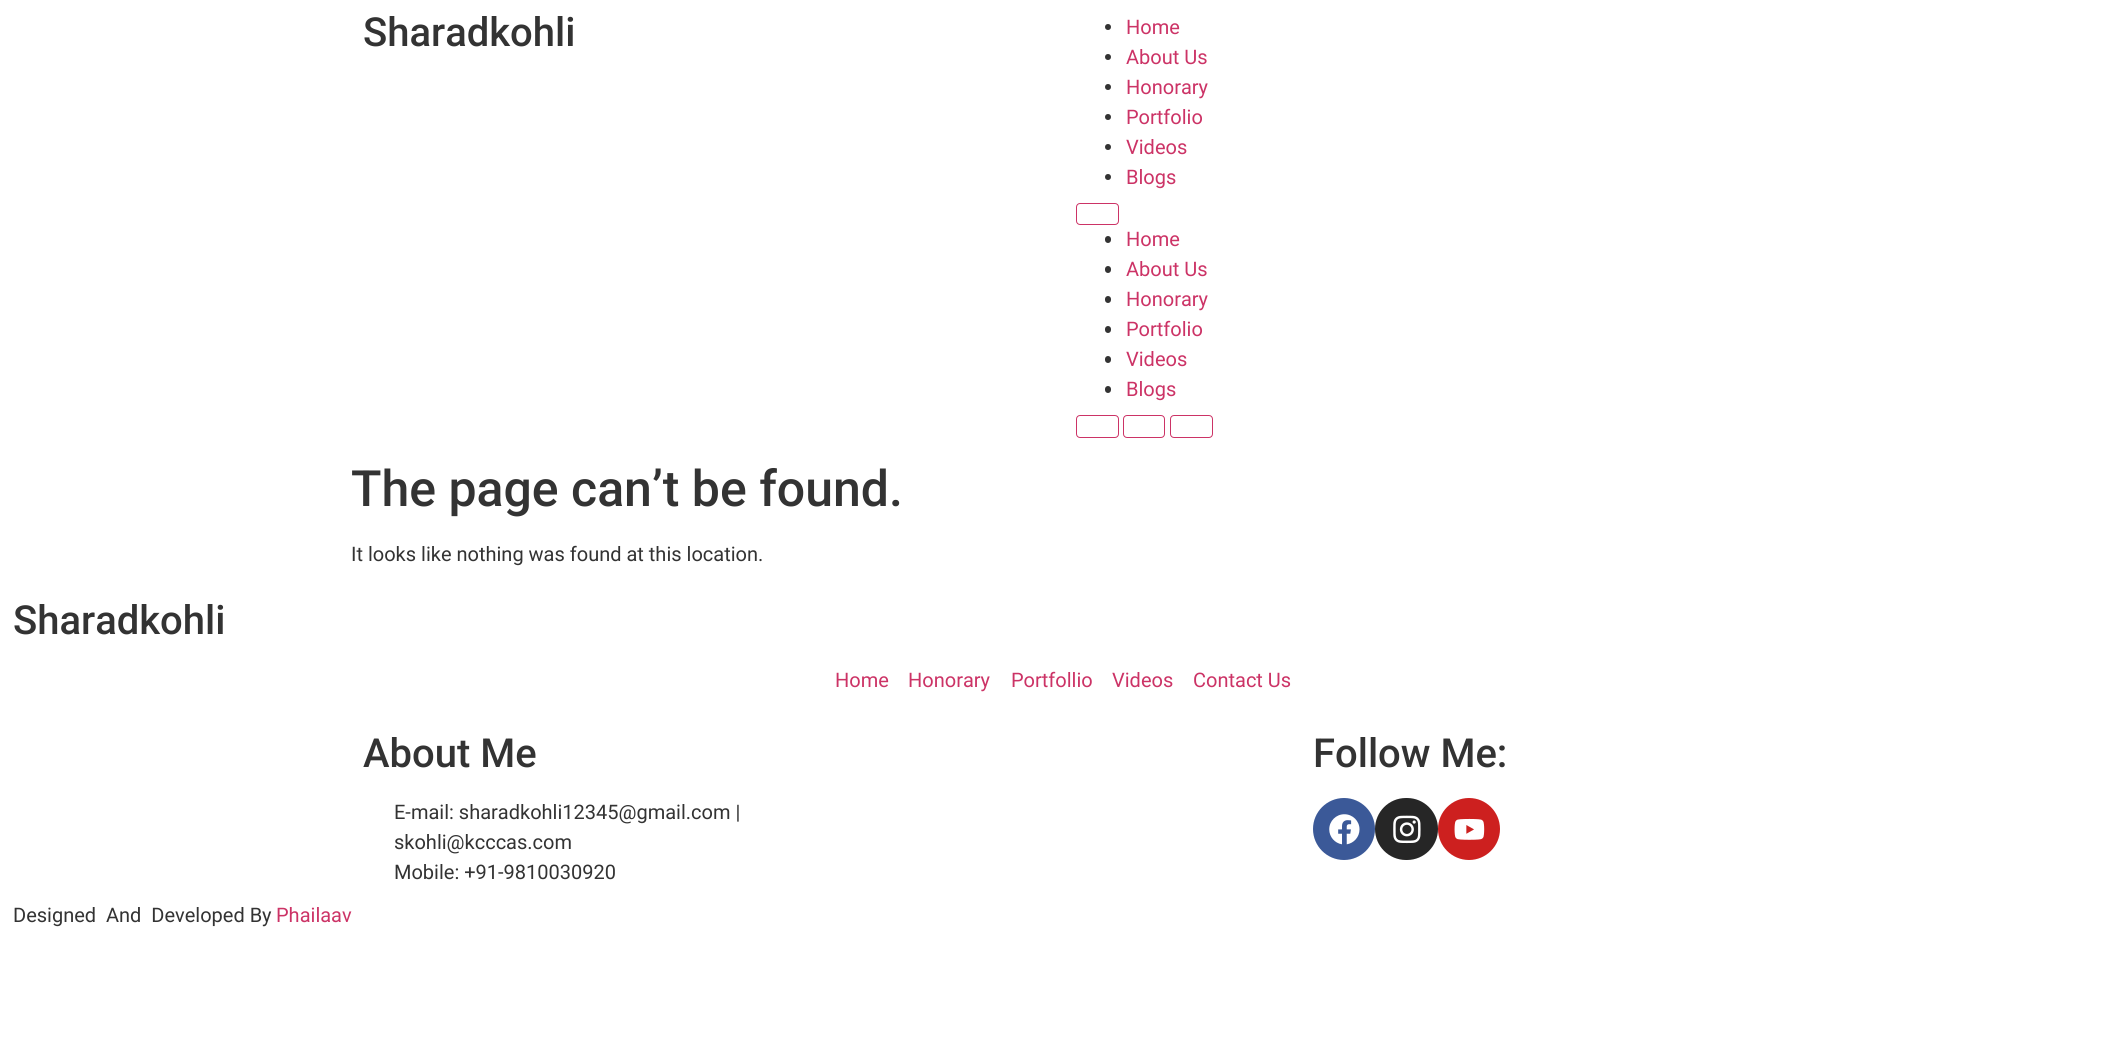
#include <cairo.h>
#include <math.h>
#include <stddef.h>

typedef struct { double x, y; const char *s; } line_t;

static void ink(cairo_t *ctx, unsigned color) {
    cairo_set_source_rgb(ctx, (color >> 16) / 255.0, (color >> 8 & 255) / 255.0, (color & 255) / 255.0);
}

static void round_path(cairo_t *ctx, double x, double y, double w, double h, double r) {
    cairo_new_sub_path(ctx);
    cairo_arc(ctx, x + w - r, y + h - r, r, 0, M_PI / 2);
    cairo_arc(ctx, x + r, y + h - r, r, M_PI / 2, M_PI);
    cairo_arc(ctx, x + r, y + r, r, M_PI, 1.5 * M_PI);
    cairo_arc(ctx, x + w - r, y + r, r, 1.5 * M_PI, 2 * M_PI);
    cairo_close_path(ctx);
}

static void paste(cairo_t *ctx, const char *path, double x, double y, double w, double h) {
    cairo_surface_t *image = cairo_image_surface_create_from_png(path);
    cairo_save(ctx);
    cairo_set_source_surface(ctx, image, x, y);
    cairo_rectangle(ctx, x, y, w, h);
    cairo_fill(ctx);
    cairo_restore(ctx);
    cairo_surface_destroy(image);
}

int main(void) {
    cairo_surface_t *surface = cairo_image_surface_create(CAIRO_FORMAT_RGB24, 2126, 1037);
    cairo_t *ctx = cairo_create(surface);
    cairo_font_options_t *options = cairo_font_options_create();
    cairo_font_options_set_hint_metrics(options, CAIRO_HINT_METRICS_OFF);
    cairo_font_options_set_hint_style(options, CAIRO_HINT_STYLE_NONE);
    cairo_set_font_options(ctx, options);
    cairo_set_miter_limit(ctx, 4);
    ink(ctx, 0xFFFFFF);
    cairo_paint(ctx);
    cairo_select_font_face(ctx, "Roboto Medium", CAIRO_FONT_SLANT_NORMAL, CAIRO_FONT_WEIGHT_NORMAL);
    cairo_set_font_size(ctx, 40);
    ink(ctx, 0x333333);
    cairo_move_to(ctx, 363, 46);
    cairo_show_text(ctx, "Sharadkohli");
    cairo_new_path(ctx);
    cairo_arc(ctx, 1108, 27, 3, 0, 2 * M_PI);
    cairo_fill(ctx);
    cairo_select_font_face(ctx, "Roboto", CAIRO_FONT_SLANT_NORMAL, CAIRO_FONT_WEIGHT_NORMAL);
    cairo_set_font_size(ctx, 20);
    ink(ctx, 0xCC3366);
    cairo_move_to(ctx, 1126, 34);
    cairo_show_text(ctx, "Home");
    ink(ctx, 0x333333);
    cairo_new_path(ctx);
    cairo_arc(ctx, 1108, 57, 3, 0, 2 * M_PI);
    cairo_fill(ctx);
    ink(ctx, 0xCC3366);
    cairo_move_to(ctx, 1126, 64);
    cairo_show_text(ctx, "About Us");
    ink(ctx, 0x333333);
    cairo_new_path(ctx);
    cairo_arc(ctx, 1108, 87, 3, 0, 2 * M_PI);
    cairo_fill(ctx);
    ink(ctx, 0xCC3366);
    cairo_move_to(ctx, 1126, 94);
    cairo_show_text(ctx, "Honorary");
    ink(ctx, 0x333333);
    cairo_new_path(ctx);
    cairo_arc(ctx, 1108, 117, 3, 0, 2 * M_PI);
    cairo_fill(ctx);
    ink(ctx, 0xCC3366);
    cairo_move_to(ctx, 1126, 124);
    cairo_show_text(ctx, "Portfolio");
    ink(ctx, 0x333333);
    cairo_new_path(ctx);
    cairo_arc(ctx, 1108, 147, 3, 0, 2 * M_PI);
    cairo_fill(ctx);
    ink(ctx, 0xCC3366);
    cairo_move_to(ctx, 1126, 154);
    cairo_show_text(ctx, "Videos");
    ink(ctx, 0x333333);
    cairo_new_path(ctx);
    cairo_arc(ctx, 1108, 177, 3, 0, 2 * M_PI);
    cairo_fill(ctx);
    ink(ctx, 0xCC3366);
    cairo_move_to(ctx, 1126, 184);
    cairo_show_text(ctx, "Blogs");
    round_path(ctx, 1076.5, 203.5, 42, 21, 3.5);
    cairo_set_line_width(ctx, 1);
    cairo_stroke(ctx);
    ink(ctx, 0x333333);
    round_path(ctx, 1105, 236, 6, 7, 3);
    cairo_fill(ctx);
    ink(ctx, 0xCC3366);
    cairo_move_to(ctx, 1126, 246);
    cairo_show_text(ctx, "Home");
    ink(ctx, 0x333333);
    round_path(ctx, 1105, 266, 6, 7, 3);
    cairo_fill(ctx);
    ink(ctx, 0xCC3366);
    cairo_move_to(ctx, 1126, 276);
    cairo_show_text(ctx, "About Us");
    ink(ctx, 0x333333);
    round_path(ctx, 1105, 296, 6, 7, 3);
    cairo_fill(ctx);
    ink(ctx, 0xCC3366);
    cairo_move_to(ctx, 1126, 306);
    cairo_show_text(ctx, "Honorary");
    ink(ctx, 0x333333);
    round_path(ctx, 1105, 326, 6, 7, 3);
    cairo_fill(ctx);
    ink(ctx, 0xCC3366);
    cairo_move_to(ctx, 1126, 336);
    cairo_show_text(ctx, "Portfolio");
    ink(ctx, 0x333333);
    round_path(ctx, 1105, 356, 6, 7, 3);
    cairo_fill(ctx);
    ink(ctx, 0xCC3366);
    cairo_move_to(ctx, 1126, 366);
    cairo_show_text(ctx, "Videos");
    ink(ctx, 0x333333);
    round_path(ctx, 1105, 386, 6, 7, 3);
    cairo_fill(ctx);
    ink(ctx, 0xCC3366);
    cairo_move_to(ctx, 1126, 396);
    cairo_show_text(ctx, "Blogs");
    round_path(ctx, 1076.5, 415.5, 42, 22, 3.5);
    cairo_stroke(ctx);
    round_path(ctx, 1123.5, 415.5, 41, 22, 3.5);
    cairo_stroke(ctx);
    round_path(ctx, 1170.5, 415.5, 42, 22, 3.5);
    cairo_stroke(ctx);
    cairo_select_font_face(ctx, "Roboto Medium", CAIRO_FONT_SLANT_NORMAL, CAIRO_FONT_WEIGHT_NORMAL);
    cairo_set_font_size(ctx, 50);
    ink(ctx, 0x333333);
    cairo_move_to(ctx, 351, 506);
    cairo_show_text(ctx, "The page can’t be found.");
    cairo_select_font_face(ctx, "Roboto", CAIRO_FONT_SLANT_NORMAL, CAIRO_FONT_WEIGHT_NORMAL);
    cairo_set_font_size(ctx, 20);
    cairo_move_to(ctx, 351, 561);
    cairo_show_text(ctx, "It looks like nothing was found at this location.");
    cairo_select_font_face(ctx, "Roboto Medium", CAIRO_FONT_SLANT_NORMAL, CAIRO_FONT_WEIGHT_NORMAL);
    cairo_set_font_size(ctx, 40);
    cairo_move_to(ctx, 13, 634);
    cairo_show_text(ctx, "Sharadkohli");
    cairo_select_font_face(ctx, "Roboto", CAIRO_FONT_SLANT_NORMAL, CAIRO_FONT_WEIGHT_NORMAL);
    cairo_set_font_size(ctx, 20);
    ink(ctx, 0xCC3366);
    {
        static const line_t items[] = {
            {835, 687, "Home"},
            {908, 687, "Honorary"},
            {1011, 687, "Portfollio"},
            {1112, 687, "Videos"},
            {1193, 687, "Contact Us"},
        };
        for (size_t i = 0; i < sizeof items / sizeof *items; i++) {
            cairo_move_to(ctx, items[i].x, items[i].y);
            cairo_show_text(ctx, items[i].s);
        }
    }
    cairo_select_font_face(ctx, "Roboto Medium", CAIRO_FONT_SLANT_NORMAL, CAIRO_FONT_WEIGHT_NORMAL);
    cairo_set_font_size(ctx, 40);
    ink(ctx, 0x333333);
    cairo_move_to(ctx, 363, 767);
    cairo_show_text(ctx, "About Me");
    cairo_select_font_face(ctx, "Roboto", CAIRO_FONT_SLANT_NORMAL, CAIRO_FONT_WEIGHT_NORMAL);
    cairo_set_font_size(ctx, 20);
    {
        static const line_t items[] = {
            {394, 819, "E-mail: sharadkohli12345@gmail.com |"},
            {394, 849, "skohli@kcccas.com"},
            {394, 879, "Mobile: +91-9810030920"},
        };
        for (size_t i = 0; i < sizeof items / sizeof *items; i++) {
            cairo_move_to(ctx, items[i].x, items[i].y);
            cairo_show_text(ctx, items[i].s);
        }
    }
    cairo_select_font_face(ctx, "Roboto Medium", CAIRO_FONT_SLANT_NORMAL, CAIRO_FONT_WEIGHT_NORMAL);
    cairo_set_font_size(ctx, 40);
    cairo_move_to(ctx, 1313, 767);
    cairo_show_text(ctx, "Follow Me:");
    ink(ctx, 0x3B5998);
    cairo_new_path(ctx);
    cairo_arc(ctx, 1344, 829, 31, 0, 2 * M_PI);
    cairo_fill(ctx);
    paste(ctx, "media/1.png", 1329, 814, 31, 31);
    ink(ctx, 0x262626);
    round_path(ctx, 1375, 798, 63, 62, 31);
    cairo_fill(ctx);
    paste(ctx, "media/2.png", 1393, 815, 28, 29);
    ink(ctx, 0xCD201F);
    cairo_arc(ctx, 1469, 829, 31, 0, 2 * M_PI);
    cairo_fill(ctx);
    paste(ctx, "media/3.png", 1454, 818, 31, 22);
    cairo_select_font_face(ctx, "Roboto", CAIRO_FONT_SLANT_NORMAL, CAIRO_FONT_WEIGHT_NORMAL);
    cairo_set_font_size(ctx, 20);
    ink(ctx, 0x333333);
    cairo_move_to(ctx, 13, 922);
    cairo_show_text(ctx, "Designed  And  Developed By");
    ink(ctx, 0xCC3366);
    cairo_move_to(ctx, 276, 922);
    cairo_show_text(ctx, "Phailaav");
    cairo_surface_write_to_png(surface, "image.png");
    cairo_font_options_destroy(options);
    cairo_destroy(ctx);
    cairo_surface_destroy(surface);
    return 0;
}
